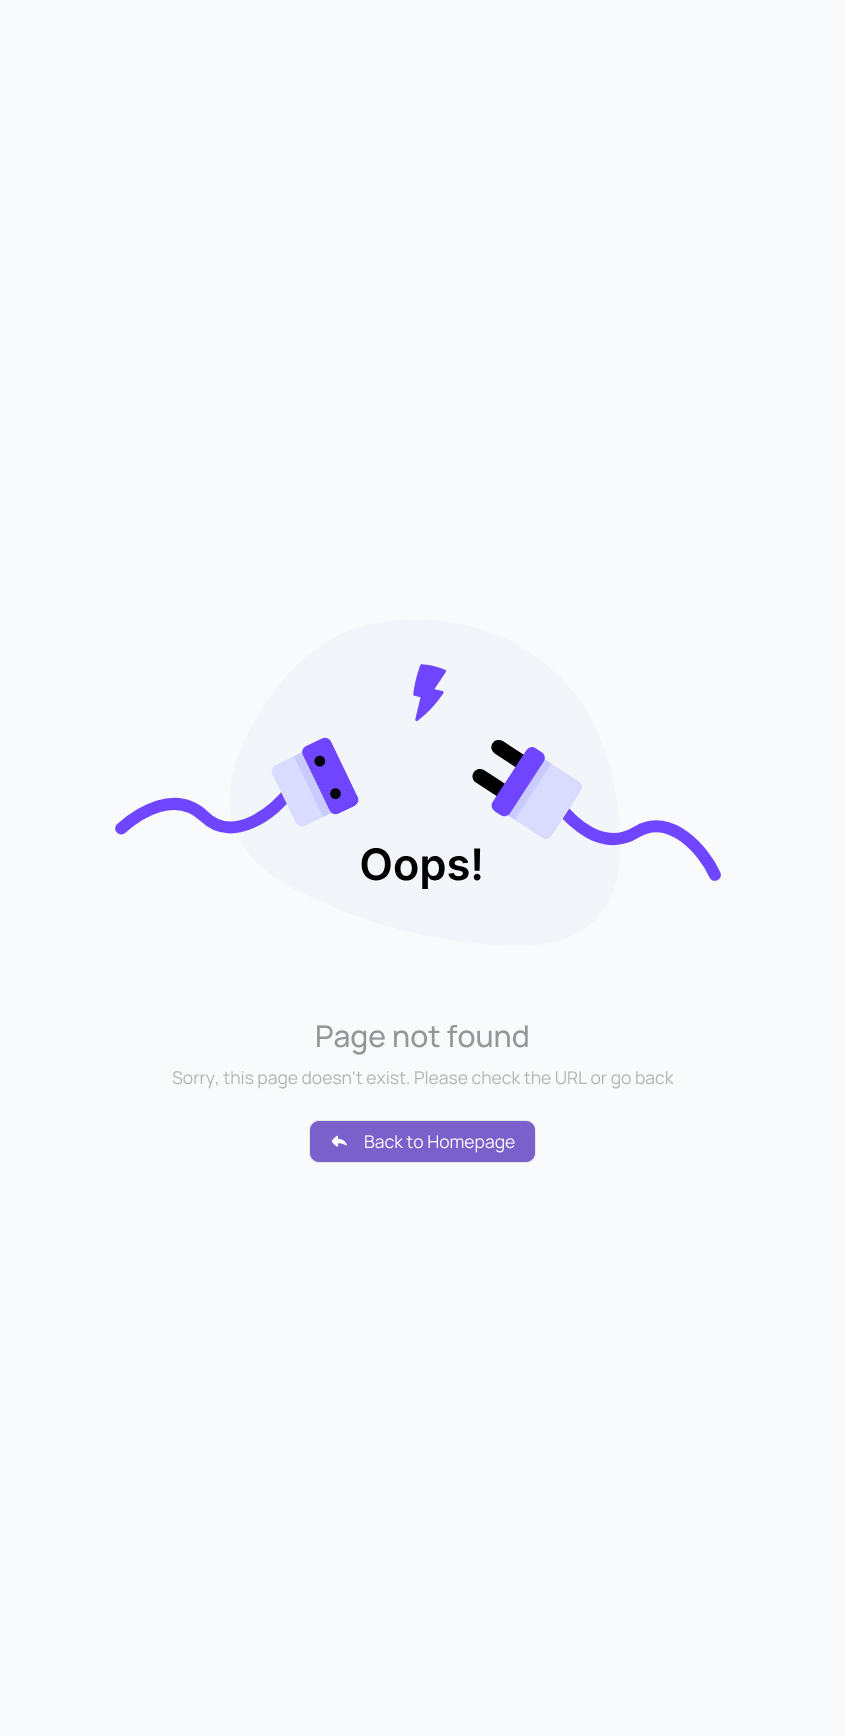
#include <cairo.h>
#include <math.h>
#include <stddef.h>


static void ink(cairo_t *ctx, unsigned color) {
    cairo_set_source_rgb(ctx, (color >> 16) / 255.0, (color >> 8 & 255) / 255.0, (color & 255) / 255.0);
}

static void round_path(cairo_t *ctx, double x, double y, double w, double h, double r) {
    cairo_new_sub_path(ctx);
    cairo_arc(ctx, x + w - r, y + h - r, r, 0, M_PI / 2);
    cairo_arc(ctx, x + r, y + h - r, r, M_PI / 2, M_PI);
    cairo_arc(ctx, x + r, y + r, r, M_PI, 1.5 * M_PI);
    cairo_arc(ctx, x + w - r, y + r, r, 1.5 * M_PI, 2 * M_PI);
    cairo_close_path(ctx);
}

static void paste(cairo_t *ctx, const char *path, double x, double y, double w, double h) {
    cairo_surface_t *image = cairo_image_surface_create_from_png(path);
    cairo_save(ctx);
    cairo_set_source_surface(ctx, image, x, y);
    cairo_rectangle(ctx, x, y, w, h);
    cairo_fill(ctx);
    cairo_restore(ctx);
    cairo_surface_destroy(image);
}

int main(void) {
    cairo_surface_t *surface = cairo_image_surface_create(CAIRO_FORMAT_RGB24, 845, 1736);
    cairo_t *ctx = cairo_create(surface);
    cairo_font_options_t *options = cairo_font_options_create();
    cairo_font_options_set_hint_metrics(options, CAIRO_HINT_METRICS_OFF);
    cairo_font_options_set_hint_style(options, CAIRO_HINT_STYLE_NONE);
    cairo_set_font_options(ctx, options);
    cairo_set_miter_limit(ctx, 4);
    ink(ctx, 0xF9FAFB);
    cairo_paint(ctx);
    paste(ctx, "media/1.png", 115, 619, 606, 327);
    cairo_select_font_face(ctx, "Manrope Medium", CAIRO_FONT_SLANT_NORMAL, CAIRO_FONT_WEIGHT_NORMAL);
    cairo_set_font_size(ctx, 30);
    ink(ctx, 0x94969A);
    cairo_move_to(ctx, 315, 1047);
    cairo_show_text(ctx, "Page not found");
    cairo_select_font_face(ctx, "Manrope", CAIRO_FONT_SLANT_NORMAL, CAIRO_FONT_WEIGHT_NORMAL);
    cairo_set_font_size(ctx, 17.5);
    ink(ctx, 0xB1B3B6);
    cairo_move_to(ctx, 172, 1084);
    cairo_show_text(ctx, "Sorry, this page doesn't exist. Please check the URL or go back");
    ink(ctx, 0x7A60CB);
    round_path(ctx, 309.5, 1120.5, 226, 42, 9.5);
    cairo_fill_preserve(ctx);
    ink(ctx, 0xE5E7EB);
    cairo_set_line_width(ctx, 1);
    cairo_stroke(ctx);
    paste(ctx, "media/2.png", 331, 1135, 16, 12);
    ink(ctx, 0xFFFFFF);
    cairo_move_to(ctx, 364, 1148);
    cairo_show_text(ctx, "Back to Homepage");
    cairo_surface_write_to_png(surface, "image.png");
    cairo_font_options_destroy(options);
    cairo_destroy(ctx);
    cairo_surface_destroy(surface);
    return 0;
}
